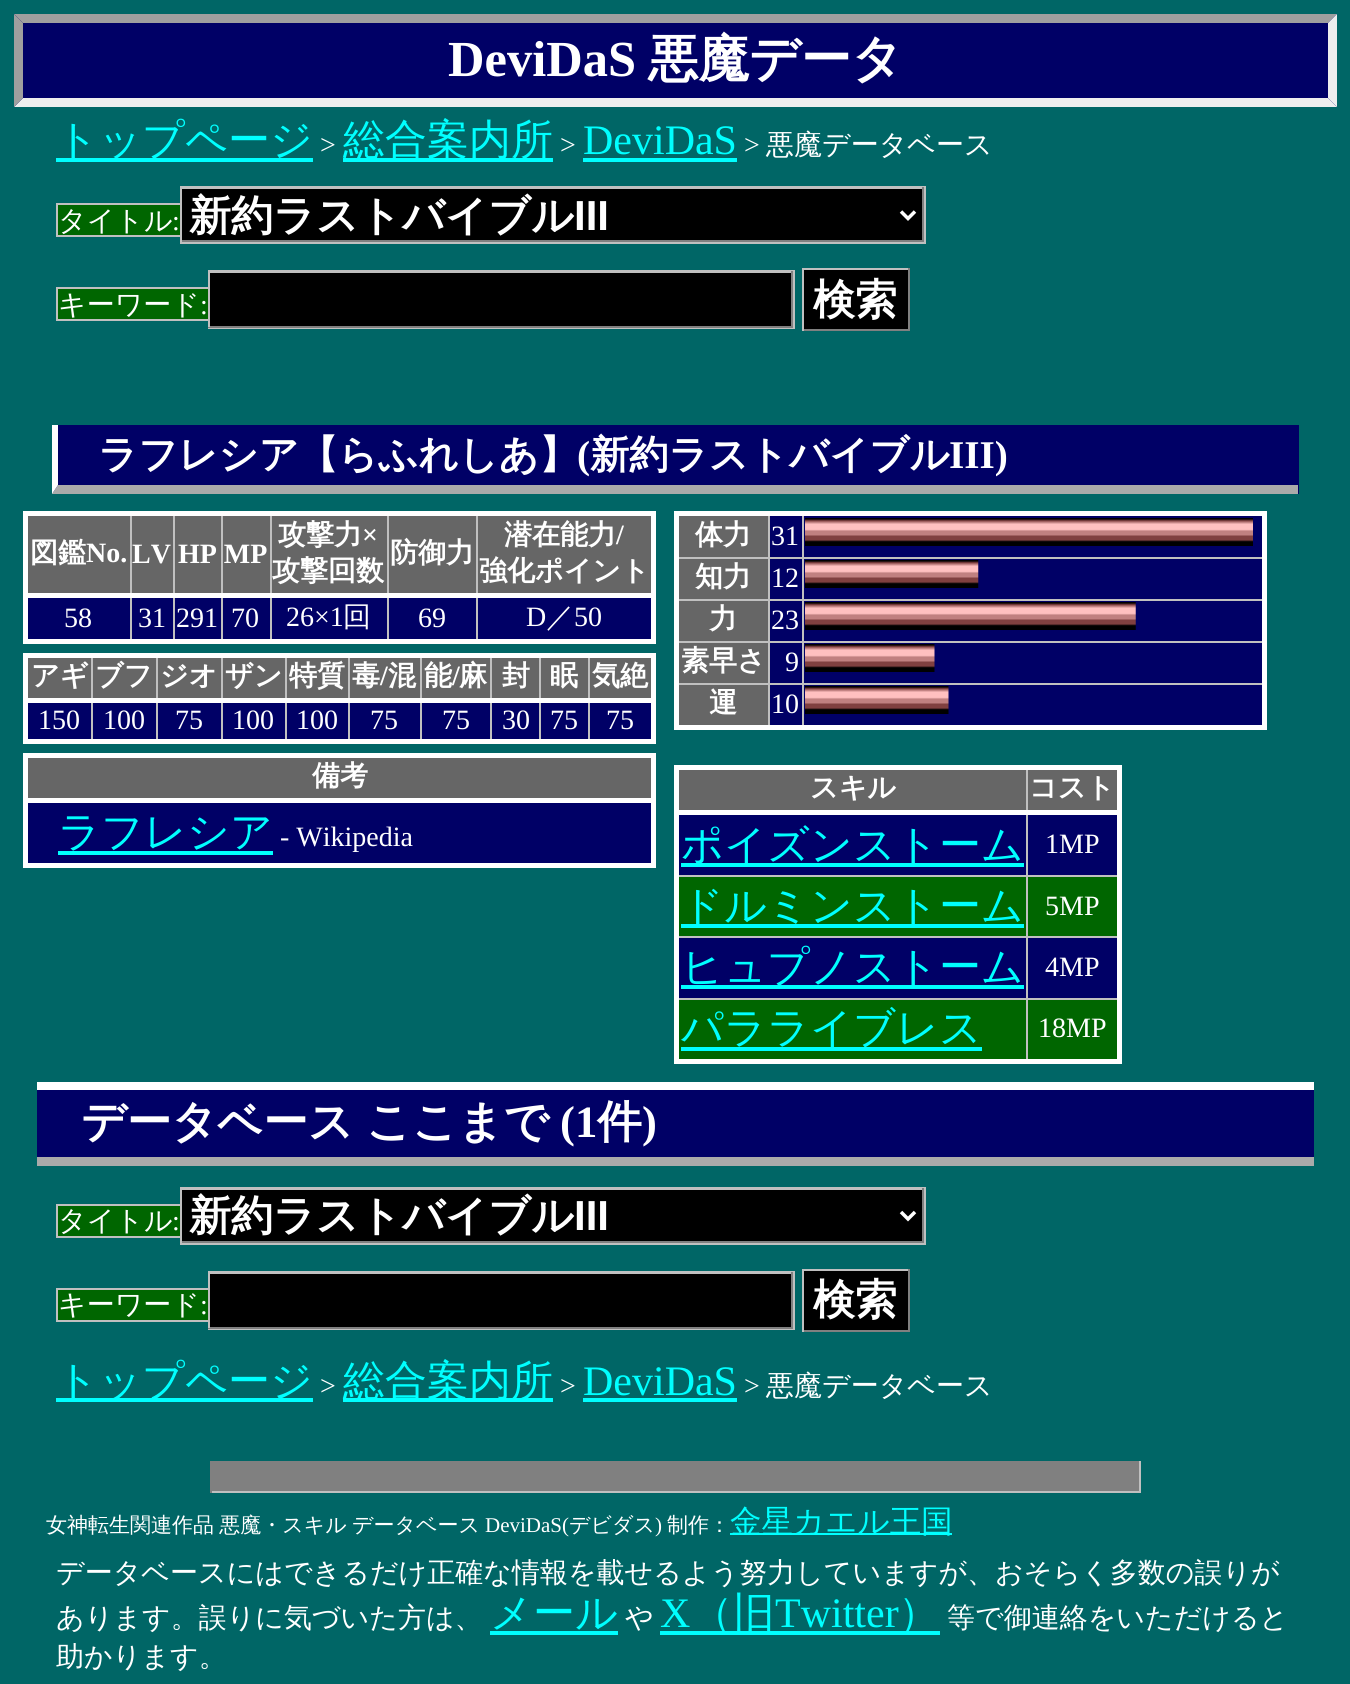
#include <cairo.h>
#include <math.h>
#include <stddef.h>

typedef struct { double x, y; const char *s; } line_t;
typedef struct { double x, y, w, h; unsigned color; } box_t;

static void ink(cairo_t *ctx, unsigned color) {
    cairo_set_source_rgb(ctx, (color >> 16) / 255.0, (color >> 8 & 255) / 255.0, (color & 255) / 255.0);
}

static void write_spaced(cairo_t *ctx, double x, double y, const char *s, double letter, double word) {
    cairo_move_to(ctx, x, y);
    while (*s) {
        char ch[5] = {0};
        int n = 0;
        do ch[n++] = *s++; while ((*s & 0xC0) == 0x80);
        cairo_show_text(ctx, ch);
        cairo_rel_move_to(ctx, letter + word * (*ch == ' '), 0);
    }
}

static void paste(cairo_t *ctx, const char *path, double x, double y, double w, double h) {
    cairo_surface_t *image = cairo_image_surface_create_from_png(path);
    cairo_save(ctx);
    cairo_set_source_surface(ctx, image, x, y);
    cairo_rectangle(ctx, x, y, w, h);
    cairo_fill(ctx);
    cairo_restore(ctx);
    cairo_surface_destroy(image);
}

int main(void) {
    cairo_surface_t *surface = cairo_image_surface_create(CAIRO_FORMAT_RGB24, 1350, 1684);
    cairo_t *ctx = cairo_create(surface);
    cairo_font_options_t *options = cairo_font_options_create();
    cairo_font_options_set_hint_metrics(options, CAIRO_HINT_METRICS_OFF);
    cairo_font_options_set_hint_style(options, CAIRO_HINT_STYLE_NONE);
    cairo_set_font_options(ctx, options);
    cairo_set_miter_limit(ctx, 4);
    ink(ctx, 0x006666);
    cairo_paint(ctx);
    ink(ctx, 0x000066);
    cairo_rectangle(ctx, 14, 14, 1323, 93);
    cairo_fill(ctx);
    ink(ctx, 0x9F9F9F);
    cairo_new_path(ctx);
    cairo_move_to(ctx, 14, 14);
    cairo_line_to(ctx, 1337, 14);
    cairo_line_to(ctx, 1328, 23);
    cairo_line_to(ctx, 23, 23);
    cairo_close_path(ctx);
    cairo_fill(ctx);
    ink(ctx, 0xEEEEEE);
    cairo_new_path(ctx);
    cairo_move_to(ctx, 1337, 14);
    cairo_line_to(ctx, 1337, 107);
    cairo_line_to(ctx, 1328, 98);
    cairo_line_to(ctx, 1328, 23);
    cairo_close_path(ctx);
    cairo_fill(ctx);
    cairo_new_path(ctx);
    cairo_move_to(ctx, 1337, 107);
    cairo_line_to(ctx, 14, 107);
    cairo_line_to(ctx, 23, 98);
    cairo_line_to(ctx, 1328, 98);
    cairo_close_path(ctx);
    cairo_fill(ctx);
    ink(ctx, 0x9F9F9F);
    cairo_new_path(ctx);
    cairo_move_to(ctx, 14, 107);
    cairo_line_to(ctx, 14, 14);
    cairo_line_to(ctx, 23, 23);
    cairo_line_to(ctx, 23, 98);
    cairo_close_path(ctx);
    cairo_fill(ctx);
    cairo_select_font_face(ctx, "Liberation Serif", CAIRO_FONT_SLANT_NORMAL, CAIRO_FONT_WEIGHT_BOLD);
    cairo_set_font_size(ctx, 50.5);
    ink(ctx, 0xFFFFFF);
    cairo_move_to(ctx, 448, 76);
    cairo_show_text(ctx, "DeviDaS");
    cairo_select_font_face(ctx, "WenQuanYi Zen Hei", CAIRO_FONT_SLANT_NORMAL, CAIRO_FONT_WEIGHT_BOLD);
    cairo_move_to(ctx, 648, 76);
    cairo_show_text(ctx, "悪魔データ");
    ink(ctx, 0x00FFFF);
    cairo_rectangle(ctx, 56, 158, 257, 4);
    cairo_fill(ctx);
    cairo_select_font_face(ctx, "WenQuanYi Zen Hei Medium", CAIRO_FONT_SLANT_NORMAL, CAIRO_FONT_WEIGHT_NORMAL);
    cairo_set_font_size(ctx, 42);
    cairo_move_to(ctx, 56, 154);
    cairo_show_text(ctx, "トップページ");
    cairo_select_font_face(ctx, "Liberation Serif", CAIRO_FONT_SLANT_NORMAL, CAIRO_FONT_WEIGHT_NORMAL);
    cairo_set_font_size(ctx, 28);
    ink(ctx, 0xFFFFFF);
    cairo_move_to(ctx, 320, 154);
    cairo_show_text(ctx, ">");
    ink(ctx, 0x00FFFF);
    cairo_rectangle(ctx, 343, 158, 210, 4);
    cairo_fill(ctx);
    cairo_select_font_face(ctx, "WenQuanYi Zen Hei Medium", CAIRO_FONT_SLANT_NORMAL, CAIRO_FONT_WEIGHT_NORMAL);
    cairo_set_font_size(ctx, 42);
    cairo_move_to(ctx, 343, 154);
    cairo_show_text(ctx, "総合案内所");
    cairo_select_font_face(ctx, "Liberation Serif", CAIRO_FONT_SLANT_NORMAL, CAIRO_FONT_WEIGHT_NORMAL);
    cairo_set_font_size(ctx, 28);
    ink(ctx, 0xFFFFFF);
    cairo_move_to(ctx, 560, 154);
    cairo_show_text(ctx, ">");
    cairo_set_font_size(ctx, 42);
    ink(ctx, 0x00FFFF);
    cairo_move_to(ctx, 583, 154);
    cairo_show_text(ctx, "DeviDaS");
    cairo_rectangle(ctx, 583, 158, 154, 4);
    cairo_fill(ctx);
    cairo_set_font_size(ctx, 28);
    ink(ctx, 0xFFFFFF);
    cairo_move_to(ctx, 744, 154);
    cairo_show_text(ctx, ">");
    cairo_select_font_face(ctx, "WenQuanYi Zen Hei Medium", CAIRO_FONT_SLANT_NORMAL, CAIRO_FONT_WEIGHT_NORMAL);
    cairo_move_to(ctx, 766, 154);
    cairo_show_text(ctx, "悪魔データベース");
    {
        static const box_t items[] = {
            {58, 205, 122, 30, 0x006600},
            {56, 203, 124, 2, 0xC0C0C0},
            {56, 235, 124, 2, 0xC0C0C0},
            {56, 203, 2, 33, 0xC0C0C0},
            {180, 186, 746, 1, 0xC0C0C0},
            {924, 186, 2, 57, 0xC0C0C0},
            {180, 242, 746, 2, 0xC0C0C0},
        };
        for (size_t i = 0; i < sizeof items / sizeof *items; i++) {
            ink(ctx, items[i].color);
            cairo_rectangle(ctx, items[i].x, items[i].y, items[i].w, items[i].h);
            cairo_fill(ctx);
        }
    }
    ink(ctx, 0xFFFFFF);
    cairo_move_to(ctx, 58, 230);
    cairo_show_text(ctx, "タイトル");
    cairo_select_font_face(ctx, "Liberation Serif", CAIRO_FONT_SLANT_NORMAL, CAIRO_FONT_WEIGHT_NORMAL);
    cairo_move_to(ctx, 172, 230);
    cairo_show_text(ctx, ":");
    {
        static const box_t items[] = {
            {182, 189, 740, 51, 0x000000},
            {180, 187, 744, 2, 0xC0C0C0},
            {922, 187, 2, 55, 0x808080},
            {180, 240, 744, 2, 0x808080},
            {180, 187, 2, 55, 0xC0C0C0},
        };
        for (size_t i = 0; i < sizeof items / sizeof *items; i++) {
            ink(ctx, items[i].color);
            cairo_rectangle(ctx, items[i].x, items[i].y, items[i].w, items[i].h);
            cairo_fill(ctx);
        }
    }
    cairo_new_path(ctx);
    cairo_move_to(ctx, 901, 211.5);
    cairo_line_to(ctx, 908, 218.5);
    cairo_line_to(ctx, 915, 211.5);
    ink(ctx, 0xFFFFFF);
    cairo_set_line_width(ctx, 3.5);
    cairo_stroke(ctx);
    cairo_select_font_face(ctx, "WenQuanYi Zen Hei", CAIRO_FONT_SLANT_NORMAL, CAIRO_FONT_WEIGHT_BOLD);
    cairo_set_font_size(ctx, 42);
    cairo_move_to(ctx, 189, 230);
    cairo_show_text(ctx, "新約ラストバイブル");
    cairo_select_font_face(ctx, "Liberation Sans", CAIRO_FONT_SLANT_NORMAL, CAIRO_FONT_WEIGHT_BOLD);
    cairo_move_to(ctx, 574, 230);
    cairo_show_text(ctx, "III");
    {
        static const box_t items[] = {
            {58, 289, 150, 30, 0x006600},
            {56, 287, 152, 2, 0xC0C0C0},
            {56, 319, 152, 2, 0xC0C0C0},
            {56, 287, 2, 33, 0xC0C0C0},
            {208, 270, 587, 1, 0xC0C0C0},
            {793, 270, 2, 59, 0xC0C0C0},
            {208, 327, 587, 2, 0xC0C0C0},
        };
        for (size_t i = 0; i < sizeof items / sizeof *items; i++) {
            ink(ctx, items[i].color);
            cairo_rectangle(ctx, items[i].x, items[i].y, items[i].w, items[i].h);
            cairo_fill(ctx);
        }
    }
    cairo_select_font_face(ctx, "WenQuanYi Zen Hei Medium", CAIRO_FONT_SLANT_NORMAL, CAIRO_FONT_WEIGHT_NORMAL);
    cairo_set_font_size(ctx, 28);
    ink(ctx, 0xFFFFFF);
    cairo_move_to(ctx, 58, 314);
    cairo_show_text(ctx, "キーワード");
    cairo_select_font_face(ctx, "Liberation Serif", CAIRO_FONT_SLANT_NORMAL, CAIRO_FONT_WEIGHT_NORMAL);
    cairo_move_to(ctx, 200, 314);
    cairo_show_text(ctx, ":");
    {
        static const box_t items[] = {
            {210, 273, 581, 53, 0x000000},
            {208, 271, 585, 2, 0xC0C0C0},
            {791, 271, 2, 56, 0x808080},
            {208, 326, 585, 2, 0x808080},
            {208, 271, 2, 56, 0xC0C0C0},
            {804, 270, 104, 59, 0x000000},
            {802, 268, 108, 2, 0xC0C0C0},
            {908, 268, 2, 63, 0x808080},
            {802, 329, 108, 2, 0x808080},
            {802, 268, 2, 63, 0xC0C0C0},
        };
        for (size_t i = 0; i < sizeof items / sizeof *items; i++) {
            ink(ctx, items[i].color);
            cairo_rectangle(ctx, items[i].x, items[i].y, items[i].w, items[i].h);
            cairo_fill(ctx);
        }
    }
    cairo_select_font_face(ctx, "WenQuanYi Zen Hei", CAIRO_FONT_SLANT_NORMAL, CAIRO_FONT_WEIGHT_BOLD);
    cairo_set_font_size(ctx, 42);
    ink(ctx, 0xFFFFFF);
    cairo_move_to(ctx, 813, 314);
    cairo_show_text(ctx, "検索");
    ink(ctx, 0x000066);
    cairo_rectangle(ctx, 53, 425, 1246, 69);
    cairo_fill(ctx);
    ink(ctx, 0xAAAAAA);
    cairo_new_path(ctx);
    cairo_move_to(ctx, 1298, 494);
    cairo_line_to(ctx, 52, 494);
    cairo_line_to(ctx, 58, 485);
    cairo_line_to(ctx, 1298, 485);
    cairo_close_path(ctx);
    cairo_fill(ctx);
    ink(ctx, 0xFFFFFF);
    cairo_new_path(ctx);
    cairo_move_to(ctx, 52, 494);
    cairo_line_to(ctx, 52, 425);
    cairo_line_to(ctx, 58, 425);
    cairo_line_to(ctx, 58, 485);
    cairo_close_path(ctx);
    cairo_fill(ctx);
    cairo_set_font_size(ctx, 39.25);
    cairo_move_to(ctx, 98, 468);
    cairo_show_text(ctx, "ラフレシア【らふれしあ】");
    cairo_select_font_face(ctx, "Liberation Serif", CAIRO_FONT_SLANT_NORMAL, CAIRO_FONT_WEIGHT_BOLD);
    cairo_move_to(ctx, 577, 468);
    cairo_show_text(ctx, "(");
    cairo_select_font_face(ctx, "WenQuanYi Zen Hei", CAIRO_FONT_SLANT_NORMAL, CAIRO_FONT_WEIGHT_BOLD);
    cairo_move_to(ctx, 590, 468);
    cairo_show_text(ctx, "新約ラストバイブル");
    cairo_select_font_face(ctx, "Liberation Serif", CAIRO_FONT_SLANT_NORMAL, CAIRO_FONT_WEIGHT_BOLD);
    cairo_move_to(ctx, 949, 468);
    cairo_show_text(ctx, "III)");
    {
        static const box_t items[] = {
            {28, 516, 623, 77, 0x666666},
            {28, 598, 623, 41, 0x000066},
            {130, 513, 2, 129, 0xC0C0C0},
            {173, 513, 2, 129, 0xC0C0C0},
            {221, 513, 2, 129, 0xC0C0C0},
            {270, 513, 2, 129, 0xC0C0C0},
            {387, 513, 2, 129, 0xC0C0C0},
            {476, 513, 2, 129, 0xC0C0C0},
            {23, 511, 633, 5, 0xFFFFFF},
            {651, 511, 5, 133, 0xFFFFFF},
            {23, 639, 633, 5, 0xFFFFFF},
            {23, 511, 5, 133, 0xFFFFFF},
            {23, 593, 633, 5, 0xFFFFFF},
        };
        for (size_t i = 0; i < sizeof items / sizeof *items; i++) {
            ink(ctx, items[i].color);
            cairo_rectangle(ctx, items[i].x, items[i].y, items[i].w, items[i].h);
            cairo_fill(ctx);
        }
    }
    cairo_select_font_face(ctx, "WenQuanYi Zen Hei", CAIRO_FONT_SLANT_NORMAL, CAIRO_FONT_WEIGHT_BOLD);
    cairo_set_font_size(ctx, 28);
    cairo_move_to(ctx, 30, 562);
    cairo_show_text(ctx, "図鑑");
    cairo_select_font_face(ctx, "Liberation Serif", CAIRO_FONT_SLANT_NORMAL, CAIRO_FONT_WEIGHT_BOLD);
    cairo_move_to(ctx, 86, 562);
    cairo_show_text(ctx, "No.");
    cairo_move_to(ctx, 132, 563);
    cairo_show_text(ctx, "LV HP MP");
    cairo_select_font_face(ctx, "WenQuanYi Zen Hei", CAIRO_FONT_SLANT_NORMAL, CAIRO_FONT_WEIGHT_BOLD);
    cairo_move_to(ctx, 278, 544);
    cairo_show_text(ctx, "攻撃力");
    cairo_select_font_face(ctx, "Liberation Serif", CAIRO_FONT_SLANT_NORMAL, CAIRO_FONT_WEIGHT_BOLD);
    cairo_move_to(ctx, 362, 544);
    cairo_show_text(ctx, "×");
    cairo_select_font_face(ctx, "WenQuanYi Zen Hei", CAIRO_FONT_SLANT_NORMAL, CAIRO_FONT_WEIGHT_BOLD);
    {
        static const line_t items[] = {
            {272, 580, "攻撃回数"},
            {390, 562, "防御力"},
            {504, 544, "潜在能力"},
        };
        for (size_t i = 0; i < sizeof items / sizeof *items; i++) {
            cairo_move_to(ctx, items[i].x, items[i].y);
            cairo_show_text(ctx, items[i].s);
        }
    }
    cairo_select_font_face(ctx, "Liberation Serif", CAIRO_FONT_SLANT_NORMAL, CAIRO_FONT_WEIGHT_BOLD);
    cairo_move_to(ctx, 616, 544);
    cairo_show_text(ctx, "/");
    cairo_select_font_face(ctx, "WenQuanYi Zen Hei", CAIRO_FONT_SLANT_NORMAL, CAIRO_FONT_WEIGHT_BOLD);
    cairo_move_to(ctx, 479, 580);
    cairo_show_text(ctx, "強化ポイント");
    cairo_select_font_face(ctx, "Liberation Serif", CAIRO_FONT_SLANT_NORMAL, CAIRO_FONT_WEIGHT_NORMAL);
    {
        static const line_t items[] = {
            {64, 627, "58"},
            {138, 627, "31"},
            {176, 627, "291"},
            {231, 627, "70"},
            {286, 626, "26×1"},
        };
        for (size_t i = 0; i < sizeof items / sizeof *items; i++) {
            cairo_move_to(ctx, items[i].x, items[i].y);
            cairo_show_text(ctx, items[i].s);
        }
    }
    cairo_select_font_face(ctx, "WenQuanYi Zen Hei Medium", CAIRO_FONT_SLANT_NORMAL, CAIRO_FONT_WEIGHT_NORMAL);
    cairo_move_to(ctx, 343, 626);
    cairo_show_text(ctx, "回");
    cairo_select_font_face(ctx, "Liberation Serif", CAIRO_FONT_SLANT_NORMAL, CAIRO_FONT_WEIGHT_NORMAL);
    cairo_move_to(ctx, 418, 627);
    cairo_show_text(ctx, "69");
    cairo_move_to(ctx, 526, 626);
    cairo_show_text(ctx, "D");
    cairo_select_font_face(ctx, "WenQuanYi Zen Hei Medium", CAIRO_FONT_SLANT_NORMAL, CAIRO_FONT_WEIGHT_NORMAL);
    cairo_move_to(ctx, 546, 626);
    cairo_show_text(ctx, "／");
    cairo_select_font_face(ctx, "Liberation Serif", CAIRO_FONT_SLANT_NORMAL, CAIRO_FONT_WEIGHT_NORMAL);
    cairo_move_to(ctx, 574, 626);
    cairo_show_text(ctx, "50");
    {
        static const box_t items[] = {
            {28, 658, 623, 40, 0x666666},
            {28, 703, 623, 36, 0x000066},
            {91, 655, 2, 87, 0xC0C0C0},
            {156, 655, 2, 87, 0xC0C0C0},
            {221, 655, 2, 87, 0xC0C0C0},
            {285, 655, 2, 87, 0xC0C0C0},
            {348, 655, 2, 87, 0xC0C0C0},
            {420, 655, 2, 87, 0xC0C0C0},
            {490, 655, 2, 87, 0xC0C0C0},
            {539, 655, 2, 87, 0xC0C0C0},
            {588, 655, 2, 87, 0xC0C0C0},
            {23, 653, 633, 5, 0xFFFFFF},
            {651, 653, 5, 91, 0xFFFFFF},
            {23, 739, 633, 5, 0xFFFFFF},
            {23, 653, 5, 91, 0xFFFFFF},
            {23, 698, 633, 5, 0xFFFFFF},
        };
        for (size_t i = 0; i < sizeof items / sizeof *items; i++) {
            ink(ctx, items[i].color);
            cairo_rectangle(ctx, items[i].x, items[i].y, items[i].w, items[i].h);
            cairo_fill(ctx);
        }
    }
    cairo_select_font_face(ctx, "WenQuanYi Zen Hei", CAIRO_FONT_SLANT_NORMAL, CAIRO_FONT_WEIGHT_BOLD);
    {
        static const line_t items[] = {
            {31, 685, "アギ"},
            {95, 685, "ブフ"},
            {160, 685, "ジオ"},
            {225, 685, "ザン"},
            {289, 685, "特質"},
            {352, 685, "毒"},
        };
        for (size_t i = 0; i < sizeof items / sizeof *items; i++) {
            cairo_move_to(ctx, items[i].x, items[i].y);
            cairo_show_text(ctx, items[i].s);
        }
    }
    cairo_select_font_face(ctx, "Liberation Serif", CAIRO_FONT_SLANT_NORMAL, CAIRO_FONT_WEIGHT_BOLD);
    cairo_move_to(ctx, 380, 685);
    cairo_show_text(ctx, "/");
    cairo_select_font_face(ctx, "WenQuanYi Zen Hei", CAIRO_FONT_SLANT_NORMAL, CAIRO_FONT_WEIGHT_BOLD);
    cairo_move_to(ctx, 388, 685);
    cairo_show_text(ctx, "混");
    cairo_move_to(ctx, 424, 685);
    cairo_show_text(ctx, "能");
    cairo_select_font_face(ctx, "Liberation Serif", CAIRO_FONT_SLANT_NORMAL, CAIRO_FONT_WEIGHT_BOLD);
    cairo_move_to(ctx, 452, 685);
    cairo_show_text(ctx, "/");
    cairo_select_font_face(ctx, "WenQuanYi Zen Hei", CAIRO_FONT_SLANT_NORMAL, CAIRO_FONT_WEIGHT_BOLD);
    {
        static const line_t items[] = {
            {459, 685, "麻"},
            {502, 685, "封"},
            {550, 685, "眠"},
            {592, 685, "気絶"},
        };
        for (size_t i = 0; i < sizeof items / sizeof *items; i++) {
            cairo_move_to(ctx, items[i].x, items[i].y);
            cairo_show_text(ctx, items[i].s);
        }
    }
    cairo_select_font_face(ctx, "Liberation Serif", CAIRO_FONT_SLANT_NORMAL, CAIRO_FONT_WEIGHT_NORMAL);
    {
        static const line_t items[] = {
            {38, 729, "150"},
            {103, 729, "100"},
            {175, 729, "75"},
            {232, 729, "100"},
            {296, 729, "100"},
            {370, 729, "75"},
            {442, 729, "75"},
            {502, 729, "30"},
            {550, 729, "75"},
            {606, 729, "75"},
        };
        for (size_t i = 0; i < sizeof items / sizeof *items; i++) {
            cairo_move_to(ctx, items[i].x, items[i].y);
            cairo_show_text(ctx, items[i].s);
        }
    }
    {
        static const box_t items[] = {
            {23, 753, 633, 5, 0xFFFFFF},
            {651, 753, 5, 115, 0xFFFFFF},
            {23, 863, 633, 5, 0xFFFFFF},
            {23, 753, 5, 115, 0xFFFFFF},
            {28, 758, 623, 40, 0x666666},
            {23, 798, 633, 5, 0xFFFFFF},
        };
        for (size_t i = 0; i < sizeof items / sizeof *items; i++) {
            ink(ctx, items[i].color);
            cairo_rectangle(ctx, items[i].x, items[i].y, items[i].w, items[i].h);
            cairo_fill(ctx);
        }
    }
    cairo_select_font_face(ctx, "WenQuanYi Zen Hei", CAIRO_FONT_SLANT_NORMAL, CAIRO_FONT_WEIGHT_BOLD);
    cairo_move_to(ctx, 312, 785);
    cairo_show_text(ctx, "備考");
    ink(ctx, 0x000066);
    cairo_rectangle(ctx, 28, 803, 623, 60);
    cairo_fill(ctx);
    cairo_select_font_face(ctx, "WenQuanYi Zen Hei Medium", CAIRO_FONT_SLANT_NORMAL, CAIRO_FONT_WEIGHT_NORMAL);
    cairo_set_font_size(ctx, 42);
    ink(ctx, 0x00FFFF);
    cairo_move_to(ctx, 58, 846);
    cairo_show_text(ctx, "ラフレシア");
    cairo_rectangle(ctx, 58, 851, 215, 4);
    cairo_fill(ctx);
    cairo_select_font_face(ctx, "Liberation Serif", CAIRO_FONT_SLANT_NORMAL, CAIRO_FONT_WEIGHT_NORMAL);
    cairo_set_font_size(ctx, 28);
    ink(ctx, 0xFFFFFF);
    cairo_move_to(ctx, 280, 846);
    cairo_show_text(ctx, "- Wikipedia");
    {
        static const box_t items[] = {
            {802, 557, 463, 2, 0xC0C0C0},
            {770, 559, 492, 40, 0x000066},
            {802, 599, 463, 2, 0xC0C0C0},
            {770, 601, 492, 40, 0x000066},
            {802, 641, 463, 2, 0xC0C0C0},
            {770, 643, 492, 40, 0x000066},
            {802, 683, 463, 2, 0xC0C0C0},
            {770, 685, 492, 40, 0x000066},
            {802, 683, 2, 45, 0xC0C0C0},
            {768, 683, 35, 2, 0xC0C0C0},
            {802, 641, 2, 43, 0xC0C0C0},
            {768, 641, 35, 2, 0xC0C0C0},
            {802, 599, 2, 43, 0xC0C0C0},
            {768, 599, 35, 2, 0xC0C0C0},
            {802, 557, 2, 43, 0xC0C0C0},
            {768, 557, 35, 2, 0xC0C0C0},
            {768, 683, 2, 45, 0xC0C0C0},
            {676, 683, 94, 2, 0xC0C0C0},
            {768, 641, 2, 43, 0xC0C0C0},
            {676, 641, 94, 2, 0xC0C0C0},
            {768, 599, 2, 43, 0xC0C0C0},
            {676, 599, 94, 2, 0xC0C0C0},
            {768, 557, 2, 43, 0xC0C0C0},
            {676, 557, 94, 2, 0xC0C0C0},
            {768, 513, 2, 45, 0xC0C0C0},
            {770, 516, 492, 41, 0x000066},
            {802, 513, 2, 45, 0xC0C0C0},
            {674, 511, 593, 5, 0xFFFFFF},
            {1262, 511, 5, 219, 0xFFFFFF},
            {674, 725, 593, 5, 0xFFFFFF},
            {674, 511, 5, 219, 0xFFFFFF},
            {679, 516, 89, 41, 0x666666},
        };
        for (size_t i = 0; i < sizeof items / sizeof *items; i++) {
            ink(ctx, items[i].color);
            cairo_rectangle(ctx, items[i].x, items[i].y, items[i].w, items[i].h);
            cairo_fill(ctx);
        }
    }
    cairo_select_font_face(ctx, "WenQuanYi Zen Hei", CAIRO_FONT_SLANT_NORMAL, CAIRO_FONT_WEIGHT_BOLD);
    ink(ctx, 0xFFFFFF);
    cairo_move_to(ctx, 695, 544);
    cairo_show_text(ctx, "体力");
    cairo_select_font_face(ctx, "Liberation Serif", CAIRO_FONT_SLANT_NORMAL, CAIRO_FONT_WEIGHT_NORMAL);
    cairo_move_to(ctx, 771, 545);
    cairo_show_text(ctx, "31");
    paste(ctx, "media/1.png", 805, 518, 448, 28);
    ink(ctx, 0x666666);
    cairo_rectangle(ctx, 679, 559, 89, 40);
    cairo_fill(ctx);
    cairo_select_font_face(ctx, "WenQuanYi Zen Hei", CAIRO_FONT_SLANT_NORMAL, CAIRO_FONT_WEIGHT_BOLD);
    ink(ctx, 0xFFFFFF);
    cairo_move_to(ctx, 695, 586);
    cairo_show_text(ctx, "知力");
    cairo_select_font_face(ctx, "Liberation Serif", CAIRO_FONT_SLANT_NORMAL, CAIRO_FONT_WEIGHT_NORMAL);
    cairo_move_to(ctx, 771, 587);
    cairo_show_text(ctx, "12");
    paste(ctx, "media/2.png", 805, 560, 174, 28);
    ink(ctx, 0x666666);
    cairo_rectangle(ctx, 679, 601, 89, 40);
    cairo_fill(ctx);
    cairo_select_font_face(ctx, "WenQuanYi Zen Hei", CAIRO_FONT_SLANT_NORMAL, CAIRO_FONT_WEIGHT_BOLD);
    ink(ctx, 0xFFFFFF);
    cairo_move_to(ctx, 709, 628);
    cairo_show_text(ctx, "力");
    cairo_select_font_face(ctx, "Liberation Serif", CAIRO_FONT_SLANT_NORMAL, CAIRO_FONT_WEIGHT_NORMAL);
    cairo_move_to(ctx, 771, 629);
    cairo_show_text(ctx, "23");
    paste(ctx, "media/3.png", 805, 602, 331, 28);
    ink(ctx, 0x666666);
    cairo_rectangle(ctx, 679, 643, 89, 40);
    cairo_fill(ctx);
    cairo_select_font_face(ctx, "WenQuanYi Zen Hei", CAIRO_FONT_SLANT_NORMAL, CAIRO_FONT_WEIGHT_BOLD);
    ink(ctx, 0xFFFFFF);
    cairo_move_to(ctx, 681, 670);
    cairo_show_text(ctx, "素早さ");
    cairo_select_font_face(ctx, "Liberation Serif", CAIRO_FONT_SLANT_NORMAL, CAIRO_FONT_WEIGHT_NORMAL);
    cairo_move_to(ctx, 785, 671);
    cairo_show_text(ctx, "9");
    paste(ctx, "media/4.png", 805, 644, 130, 28);
    ink(ctx, 0x666666);
    cairo_rectangle(ctx, 679, 685, 89, 40);
    cairo_fill(ctx);
    cairo_select_font_face(ctx, "WenQuanYi Zen Hei", CAIRO_FONT_SLANT_NORMAL, CAIRO_FONT_WEIGHT_BOLD);
    ink(ctx, 0xFFFFFF);
    cairo_move_to(ctx, 709, 712);
    cairo_show_text(ctx, "運");
    cairo_select_font_face(ctx, "Liberation Serif", CAIRO_FONT_SLANT_NORMAL, CAIRO_FONT_WEIGHT_NORMAL);
    cairo_move_to(ctx, 771, 713);
    cairo_show_text(ctx, "10");
    paste(ctx, "media/5.png", 805, 686, 144, 28);
    {
        static const box_t items[] = {
            {679, 877, 438, 182, 0x006600},
            {679, 770, 438, 40, 0x666666},
            {679, 815, 438, 60, 0x000066},
            {1026, 875, 94, 2, 0xC0C0C0},
            {1026, 936, 94, 2, 0xC0C0C0},
            {679, 938, 438, 60, 0x000066},
            {1026, 998, 94, 2, 0xC0C0C0},
            {1026, 998, 2, 64, 0xC0C0C0},
            {676, 998, 351, 2, 0xC0C0C0},
            {1026, 936, 2, 63, 0xC0C0C0},
            {676, 936, 351, 2, 0xC0C0C0},
            {1026, 875, 2, 63, 0xC0C0C0},
            {676, 875, 351, 2, 0xC0C0C0},
            {1026, 767, 2, 110, 0xC0C0C0},
            {674, 765, 448, 5, 0xFFFFFF},
            {1117, 765, 5, 299, 0xFFFFFF},
            {674, 1059, 448, 5, 0xFFFFFF},
            {674, 765, 5, 299, 0xFFFFFF},
            {674, 810, 448, 5, 0xFFFFFF},
        };
        for (size_t i = 0; i < sizeof items / sizeof *items; i++) {
            ink(ctx, items[i].color);
            cairo_rectangle(ctx, items[i].x, items[i].y, items[i].w, items[i].h);
            cairo_fill(ctx);
        }
    }
    cairo_select_font_face(ctx, "WenQuanYi Zen Hei", CAIRO_FONT_SLANT_NORMAL, CAIRO_FONT_WEIGHT_BOLD);
    cairo_move_to(ctx, 810, 797);
    cairo_show_text(ctx, "スキル");
    cairo_move_to(ctx, 1029, 797);
    cairo_show_text(ctx, "コスト");
    ink(ctx, 0x00FFFF);
    cairo_rectangle(ctx, 681, 863, 343, 4);
    cairo_fill(ctx);
    cairo_select_font_face(ctx, "WenQuanYi Zen Hei Medium", CAIRO_FONT_SLANT_NORMAL, CAIRO_FONT_WEIGHT_NORMAL);
    cairo_set_font_size(ctx, 42);
    cairo_move_to(ctx, 681, 859);
    cairo_show_text(ctx, "ポイズンストーム");
    cairo_select_font_face(ctx, "Liberation Serif", CAIRO_FONT_SLANT_NORMAL, CAIRO_FONT_WEIGHT_NORMAL);
    cairo_set_font_size(ctx, 28);
    ink(ctx, 0xFFFFFF);
    cairo_move_to(ctx, 1045, 853);
    cairo_show_text(ctx, "1MP");
    ink(ctx, 0x00FFFF);
    cairo_rectangle(ctx, 681, 924, 343, 4);
    cairo_fill(ctx);
    cairo_select_font_face(ctx, "WenQuanYi Zen Hei Medium", CAIRO_FONT_SLANT_NORMAL, CAIRO_FONT_WEIGHT_NORMAL);
    cairo_set_font_size(ctx, 42);
    cairo_move_to(ctx, 681, 920);
    cairo_show_text(ctx, "ドルミンストーム");
    cairo_select_font_face(ctx, "Liberation Serif", CAIRO_FONT_SLANT_NORMAL, CAIRO_FONT_WEIGHT_NORMAL);
    cairo_set_font_size(ctx, 28);
    ink(ctx, 0xFFFFFF);
    cairo_move_to(ctx, 1045, 915);
    cairo_show_text(ctx, "5MP");
    ink(ctx, 0x00FFFF);
    cairo_rectangle(ctx, 681, 985, 343, 4);
    cairo_fill(ctx);
    cairo_select_font_face(ctx, "WenQuanYi Zen Hei Medium", CAIRO_FONT_SLANT_NORMAL, CAIRO_FONT_WEIGHT_NORMAL);
    cairo_set_font_size(ctx, 42);
    cairo_move_to(ctx, 681, 981);
    cairo_show_text(ctx, "ヒュプノストーム");
    cairo_select_font_face(ctx, "Liberation Serif", CAIRO_FONT_SLANT_NORMAL, CAIRO_FONT_WEIGHT_NORMAL);
    cairo_set_font_size(ctx, 28);
    ink(ctx, 0xFFFFFF);
    cairo_move_to(ctx, 1045, 976);
    cairo_show_text(ctx, "4MP");
    ink(ctx, 0x00FFFF);
    cairo_rectangle(ctx, 681, 1047, 301, 4);
    cairo_fill(ctx);
    cairo_select_font_face(ctx, "WenQuanYi Zen Hei Medium", CAIRO_FONT_SLANT_NORMAL, CAIRO_FONT_WEIGHT_NORMAL);
    cairo_set_font_size(ctx, 42);
    cairo_move_to(ctx, 681, 1042);
    cairo_show_text(ctx, "パラライブレス");
    cairo_select_font_face(ctx, "Liberation Serif", CAIRO_FONT_SLANT_NORMAL, CAIRO_FONT_WEIGHT_NORMAL);
    cairo_set_font_size(ctx, 28);
    ink(ctx, 0xFFFFFF);
    cairo_move_to(ctx, 1038, 1037);
    cairo_show_text(ctx, "18MP");
    {
        static const box_t items[] = {
            {37, 1090, 1277, 67, 0x000066},
            {37, 1082, 1277, 8, 0xFFFFFF},
            {37, 1157, 1277, 9, 0xAAAAAA},
        };
        for (size_t i = 0; i < sizeof items / sizeof *items; i++) {
            ink(ctx, items[i].color);
            cairo_rectangle(ctx, items[i].x, items[i].y, items[i].w, items[i].h);
            cairo_fill(ctx);
        }
    }
    cairo_select_font_face(ctx, "WenQuanYi Zen Hei", CAIRO_FONT_SLANT_NORMAL, CAIRO_FONT_WEIGHT_BOLD);
    cairo_set_font_size(ctx, 44.75);
    ink(ctx, 0xFFFFFF);
    write_spaced(ctx, 81, 1137, "データベース ここまで", 0, -1);
    cairo_select_font_face(ctx, "Liberation Serif", CAIRO_FONT_SLANT_NORMAL, CAIRO_FONT_WEIGHT_BOLD);
    cairo_move_to(ctx, 560, 1137);
    cairo_show_text(ctx, "(1");
    cairo_select_font_face(ctx, "WenQuanYi Zen Hei", CAIRO_FONT_SLANT_NORMAL, CAIRO_FONT_WEIGHT_BOLD);
    cairo_move_to(ctx, 597, 1137);
    cairo_show_text(ctx, "件");
    cairo_select_font_face(ctx, "Liberation Serif", CAIRO_FONT_SLANT_NORMAL, CAIRO_FONT_WEIGHT_BOLD);
    cairo_move_to(ctx, 642, 1137);
    cairo_show_text(ctx, ")");
    {
        static const box_t items[] = {
            {58, 1206, 122, 30, 0x006600},
            {56, 1204, 124, 2, 0xC0C0C0},
            {56, 1236, 124, 2, 0xC0C0C0},
            {56, 1204, 2, 33, 0xC0C0C0},
            {180, 1187, 746, 1, 0xC0C0C0},
            {924, 1187, 2, 57, 0xC0C0C0},
            {180, 1243, 746, 2, 0xC0C0C0},
        };
        for (size_t i = 0; i < sizeof items / sizeof *items; i++) {
            ink(ctx, items[i].color);
            cairo_rectangle(ctx, items[i].x, items[i].y, items[i].w, items[i].h);
            cairo_fill(ctx);
        }
    }
    cairo_select_font_face(ctx, "WenQuanYi Zen Hei Medium", CAIRO_FONT_SLANT_NORMAL, CAIRO_FONT_WEIGHT_NORMAL);
    cairo_set_font_size(ctx, 28);
    ink(ctx, 0xFFFFFF);
    cairo_move_to(ctx, 58, 1230);
    cairo_show_text(ctx, "タイトル");
    cairo_select_font_face(ctx, "Liberation Serif", CAIRO_FONT_SLANT_NORMAL, CAIRO_FONT_WEIGHT_NORMAL);
    cairo_move_to(ctx, 172, 1230);
    cairo_show_text(ctx, ":");
    {
        static const box_t items[] = {
            {182, 1190, 740, 51, 0x000000},
            {180, 1188, 744, 2, 0xC0C0C0},
            {922, 1188, 2, 55, 0x808080},
            {180, 1241, 744, 2, 0x808080},
            {180, 1188, 2, 55, 0xC0C0C0},
        };
        for (size_t i = 0; i < sizeof items / sizeof *items; i++) {
            ink(ctx, items[i].color);
            cairo_rectangle(ctx, items[i].x, items[i].y, items[i].w, items[i].h);
            cairo_fill(ctx);
        }
    }
    cairo_new_path(ctx);
    cairo_move_to(ctx, 901, 1212);
    cairo_line_to(ctx, 908, 1219);
    cairo_line_to(ctx, 915, 1212);
    ink(ctx, 0xFFFFFF);
    cairo_stroke(ctx);
    cairo_select_font_face(ctx, "WenQuanYi Zen Hei", CAIRO_FONT_SLANT_NORMAL, CAIRO_FONT_WEIGHT_BOLD);
    cairo_set_font_size(ctx, 42);
    cairo_move_to(ctx, 189, 1230);
    cairo_show_text(ctx, "新約ラストバイブル");
    cairo_select_font_face(ctx, "Liberation Sans", CAIRO_FONT_SLANT_NORMAL, CAIRO_FONT_WEIGHT_BOLD);
    cairo_move_to(ctx, 574, 1230);
    cairo_show_text(ctx, "III");
    {
        static const box_t items[] = {
            {58, 1290, 150, 30, 0x006600},
            {56, 1288, 152, 2, 0xC0C0C0},
            {56, 1320, 152, 2, 0xC0C0C0},
            {56, 1288, 2, 33, 0xC0C0C0},
            {208, 1271, 587, 1, 0xC0C0C0},
            {793, 1271, 2, 59, 0xC0C0C0},
            {208, 1328, 587, 2, 0xC0C0C0},
        };
        for (size_t i = 0; i < sizeof items / sizeof *items; i++) {
            ink(ctx, items[i].color);
            cairo_rectangle(ctx, items[i].x, items[i].y, items[i].w, items[i].h);
            cairo_fill(ctx);
        }
    }
    cairo_select_font_face(ctx, "WenQuanYi Zen Hei Medium", CAIRO_FONT_SLANT_NORMAL, CAIRO_FONT_WEIGHT_NORMAL);
    cairo_set_font_size(ctx, 28);
    ink(ctx, 0xFFFFFF);
    cairo_move_to(ctx, 58, 1314);
    cairo_show_text(ctx, "キーワード");
    cairo_select_font_face(ctx, "Liberation Serif", CAIRO_FONT_SLANT_NORMAL, CAIRO_FONT_WEIGHT_NORMAL);
    cairo_move_to(ctx, 200, 1314);
    cairo_show_text(ctx, ":");
    {
        static const box_t items[] = {
            {210, 1274, 581, 53, 0x000000},
            {208, 1272, 585, 2, 0xC0C0C0},
            {791, 1272, 2, 56, 0x808080},
            {208, 1327, 585, 2, 0x808080},
            {208, 1272, 2, 56, 0xC0C0C0},
            {804, 1271, 104, 59, 0x000000},
            {802, 1269, 108, 2, 0xC0C0C0},
            {908, 1269, 2, 63, 0x808080},
            {802, 1330, 108, 2, 0x808080},
            {802, 1269, 2, 63, 0xC0C0C0},
        };
        for (size_t i = 0; i < sizeof items / sizeof *items; i++) {
            ink(ctx, items[i].color);
            cairo_rectangle(ctx, items[i].x, items[i].y, items[i].w, items[i].h);
            cairo_fill(ctx);
        }
    }
    cairo_select_font_face(ctx, "WenQuanYi Zen Hei", CAIRO_FONT_SLANT_NORMAL, CAIRO_FONT_WEIGHT_BOLD);
    cairo_set_font_size(ctx, 42);
    ink(ctx, 0xFFFFFF);
    cairo_move_to(ctx, 813, 1314);
    cairo_show_text(ctx, "検索");
    ink(ctx, 0x00FFFF);
    cairo_rectangle(ctx, 56, 1398, 257, 4);
    cairo_fill(ctx);
    cairo_select_font_face(ctx, "WenQuanYi Zen Hei Medium", CAIRO_FONT_SLANT_NORMAL, CAIRO_FONT_WEIGHT_NORMAL);
    cairo_move_to(ctx, 56, 1395);
    cairo_show_text(ctx, "トップページ");
    cairo_select_font_face(ctx, "Liberation Serif", CAIRO_FONT_SLANT_NORMAL, CAIRO_FONT_WEIGHT_NORMAL);
    cairo_set_font_size(ctx, 28);
    ink(ctx, 0xFFFFFF);
    cairo_move_to(ctx, 320, 1395);
    cairo_show_text(ctx, ">");
    ink(ctx, 0x00FFFF);
    cairo_rectangle(ctx, 343, 1398, 210, 4);
    cairo_fill(ctx);
    cairo_select_font_face(ctx, "WenQuanYi Zen Hei Medium", CAIRO_FONT_SLANT_NORMAL, CAIRO_FONT_WEIGHT_NORMAL);
    cairo_set_font_size(ctx, 42);
    cairo_move_to(ctx, 343, 1395);
    cairo_show_text(ctx, "総合案内所");
    cairo_select_font_face(ctx, "Liberation Serif", CAIRO_FONT_SLANT_NORMAL, CAIRO_FONT_WEIGHT_NORMAL);
    cairo_set_font_size(ctx, 28);
    ink(ctx, 0xFFFFFF);
    cairo_move_to(ctx, 560, 1395);
    cairo_show_text(ctx, ">");
    cairo_set_font_size(ctx, 42);
    ink(ctx, 0x00FFFF);
    cairo_move_to(ctx, 583, 1395);
    cairo_show_text(ctx, "DeviDaS");
    cairo_rectangle(ctx, 583, 1398, 154, 4);
    cairo_fill(ctx);
    cairo_set_font_size(ctx, 28);
    ink(ctx, 0xFFFFFF);
    cairo_move_to(ctx, 744, 1395);
    cairo_show_text(ctx, ">");
    cairo_select_font_face(ctx, "WenQuanYi Zen Hei Medium", CAIRO_FONT_SLANT_NORMAL, CAIRO_FONT_WEIGHT_NORMAL);
    cairo_move_to(ctx, 766, 1395);
    cairo_show_text(ctx, "悪魔データベース");
    {
        static const box_t items[] = {
            {212, 1461, 927, 30, 0x808080},
            {1139, 1461, 2, 32, 0xC0C0C0},
            {210, 1491, 931, 2, 0xC0C0C0},
            {210, 1461, 2, 32, 0x808080},
        };
        for (size_t i = 0; i < sizeof items / sizeof *items; i++) {
            ink(ctx, items[i].color);
            cairo_rectangle(ctx, items[i].x, items[i].y, items[i].w, items[i].h);
            cairo_fill(ctx);
        }
    }
    cairo_set_font_size(ctx, 21);
    ink(ctx, 0xFFFFFF);
    write_spaced(ctx, 46, 1532, "女神転生関連作品 悪魔・スキル データベース", 0, -1);
    cairo_select_font_face(ctx, "Liberation Serif", CAIRO_FONT_SLANT_NORMAL, CAIRO_FONT_WEIGHT_NORMAL);
    cairo_move_to(ctx, 485, 1532);
    cairo_show_text(ctx, "DeviDaS(");
    cairo_select_font_face(ctx, "WenQuanYi Zen Hei Medium", CAIRO_FONT_SLANT_NORMAL, CAIRO_FONT_WEIGHT_NORMAL);
    cairo_move_to(ctx, 569, 1532);
    cairo_show_text(ctx, "デビダス");
    cairo_select_font_face(ctx, "Liberation Serif", CAIRO_FONT_SLANT_NORMAL, CAIRO_FONT_WEIGHT_NORMAL);
    cairo_move_to(ctx, 655, 1532);
    cairo_show_text(ctx, ")");
    cairo_select_font_face(ctx, "WenQuanYi Zen Hei Medium", CAIRO_FONT_SLANT_NORMAL, CAIRO_FONT_WEIGHT_NORMAL);
    cairo_move_to(ctx, 667, 1532);
    cairo_show_text(ctx, "制作：");
    ink(ctx, 0x00FFFF);
    cairo_rectangle(ctx, 730, 1533, 222, 2);
    cairo_fill(ctx);
    cairo_set_font_size(ctx, 31.5);
    cairo_move_to(ctx, 730, 1532);
    cairo_show_text(ctx, "金星カエル王国");
    cairo_set_font_size(ctx, 28);
    ink(ctx, 0xFFFFFF);
    cairo_move_to(ctx, 56, 1582);
    cairo_show_text(ctx, "データベースにはできるだけ正確な情報を載せるよう努力していますが、おそらく多数の誤りが");
    cairo_move_to(ctx, 56, 1627);
    cairo_show_text(ctx, "あります。誤りに気づいた方は、");
    cairo_set_font_size(ctx, 42);
    ink(ctx, 0x00FFFF);
    cairo_move_to(ctx, 490, 1627);
    cairo_show_text(ctx, "メール");
    cairo_rectangle(ctx, 490, 1631, 128, 4);
    cairo_fill(ctx);
    cairo_set_font_size(ctx, 28);
    ink(ctx, 0xFFFFFF);
    cairo_move_to(ctx, 625, 1627);
    cairo_show_text(ctx, "や");
    cairo_select_font_face(ctx, "Liberation Serif", CAIRO_FONT_SLANT_NORMAL, CAIRO_FONT_WEIGHT_NORMAL);
    cairo_set_font_size(ctx, 42);
    ink(ctx, 0x00FFFF);
    cairo_move_to(ctx, 660, 1627);
    cairo_show_text(ctx, "X");
    cairo_rectangle(ctx, 660, 1631, 280, 4);
    cairo_fill(ctx);
    cairo_select_font_face(ctx, "WenQuanYi Zen Hei Medium", CAIRO_FONT_SLANT_NORMAL, CAIRO_FONT_WEIGHT_NORMAL);
    cairo_move_to(ctx, 691, 1627);
    cairo_show_text(ctx, "（旧");
    cairo_select_font_face(ctx, "Liberation Serif", CAIRO_FONT_SLANT_NORMAL, CAIRO_FONT_WEIGHT_NORMAL);
    cairo_move_to(ctx, 775, 1627);
    cairo_show_text(ctx, "Twitter");
    cairo_select_font_face(ctx, "WenQuanYi Zen Hei Medium", CAIRO_FONT_SLANT_NORMAL, CAIRO_FONT_WEIGHT_NORMAL);
    cairo_move_to(ctx, 898, 1627);
    cairo_show_text(ctx, "）");
    cairo_set_font_size(ctx, 28);
    ink(ctx, 0xFFFFFF);
    cairo_move_to(ctx, 947, 1627);
    cairo_show_text(ctx, "等で御連絡をいただけると");
    cairo_move_to(ctx, 56, 1666);
    cairo_show_text(ctx, "助かります。");
    cairo_surface_write_to_png(surface, "image.png");
    cairo_font_options_destroy(options);
    cairo_destroy(ctx);
    cairo_surface_destroy(surface);
    return 0;
}
